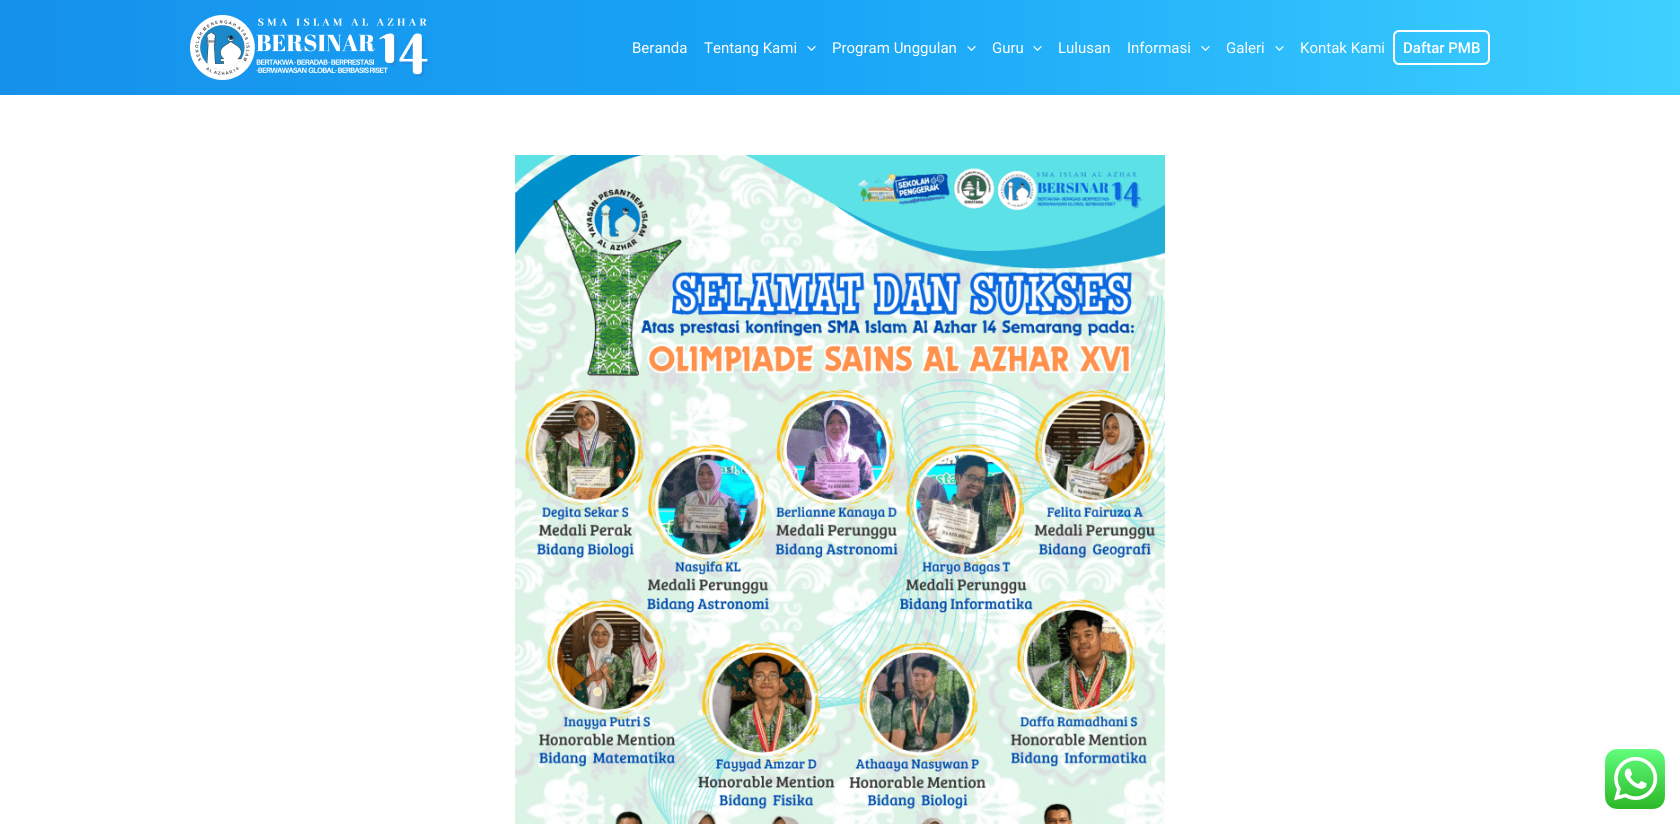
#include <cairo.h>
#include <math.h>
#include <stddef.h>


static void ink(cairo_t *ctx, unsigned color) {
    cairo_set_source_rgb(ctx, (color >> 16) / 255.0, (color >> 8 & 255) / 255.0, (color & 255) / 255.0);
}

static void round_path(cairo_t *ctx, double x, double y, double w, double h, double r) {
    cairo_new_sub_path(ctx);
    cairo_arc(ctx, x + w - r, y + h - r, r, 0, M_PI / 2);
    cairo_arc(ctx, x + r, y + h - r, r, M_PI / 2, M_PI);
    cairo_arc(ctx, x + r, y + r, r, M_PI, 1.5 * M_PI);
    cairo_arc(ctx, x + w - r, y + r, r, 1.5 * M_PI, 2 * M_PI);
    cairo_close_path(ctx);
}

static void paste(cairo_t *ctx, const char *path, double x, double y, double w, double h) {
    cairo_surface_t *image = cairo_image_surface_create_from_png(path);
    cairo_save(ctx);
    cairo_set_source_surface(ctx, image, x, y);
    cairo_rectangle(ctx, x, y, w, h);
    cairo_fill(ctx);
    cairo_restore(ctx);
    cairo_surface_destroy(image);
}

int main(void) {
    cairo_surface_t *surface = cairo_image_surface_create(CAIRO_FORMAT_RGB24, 1680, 824);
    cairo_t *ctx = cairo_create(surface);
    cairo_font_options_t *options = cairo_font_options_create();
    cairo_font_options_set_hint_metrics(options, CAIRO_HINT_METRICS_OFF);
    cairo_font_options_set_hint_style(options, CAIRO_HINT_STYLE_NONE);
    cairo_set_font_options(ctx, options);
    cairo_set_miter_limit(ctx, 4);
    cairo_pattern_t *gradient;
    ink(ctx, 0xFFFFFF);
    cairo_paint(ctx);
    gradient = cairo_pattern_create_linear(0, 48, 1680, 47);
    cairo_pattern_add_color_stop_rgba(gradient, 0, 0.086, 0.569, 0.922, 1);
    cairo_pattern_add_color_stop_rgba(gradient, 0.5, 0.098, 0.651, 0.969, 1);
    cairo_pattern_add_color_stop_rgba(gradient, 1, 0.243, 0.82, 1, 1);
    cairo_set_source(ctx, gradient);
    cairo_pattern_destroy(gradient);
    cairo_rectangle(ctx, 0, 0, 1680, 95);
    cairo_fill(ctx);
    paste(ctx, "media/1.png", 190, 15, 240, 65);
    cairo_select_font_face(ctx, "Roboto", CAIRO_FONT_SLANT_NORMAL, CAIRO_FONT_WEIGHT_NORMAL);
    cairo_set_font_size(ctx, 15);
    ink(ctx, 0xFFFFFF);
    cairo_move_to(ctx, 632, 53);
    cairo_show_text(ctx, "Beranda");
    cairo_move_to(ctx, 704, 53);
    cairo_show_text(ctx, "Tentang Kami");
    paste(ctx, "media/2.png", 807, 46, 9, 5);
    cairo_move_to(ctx, 832, 53);
    cairo_show_text(ctx, "Program Unggulan");
    paste(ctx, "media/3.png", 967, 46, 9, 5);
    cairo_move_to(ctx, 992, 53);
    cairo_show_text(ctx, "Guru");
    paste(ctx, "media/4.png", 1033, 46, 9, 5);
    cairo_move_to(ctx, 1058, 53);
    cairo_show_text(ctx, "Lulusan");
    cairo_move_to(ctx, 1127, 53);
    cairo_show_text(ctx, "Informasi");
    paste(ctx, "media/5.png", 1201, 46, 9, 5);
    cairo_move_to(ctx, 1226, 53);
    cairo_show_text(ctx, "Galeri");
    paste(ctx, "media/6.png", 1275, 46, 9, 5);
    cairo_move_to(ctx, 1300, 53);
    cairo_show_text(ctx, "Kontak Kami");
    round_path(ctx, 1394, 31, 95, 33, 5);
    cairo_stroke(ctx);
    cairo_select_font_face(ctx, "Roboto Medium", CAIRO_FONT_SLANT_NORMAL, CAIRO_FONT_WEIGHT_NORMAL);
    cairo_move_to(ctx, 1403, 53);
    cairo_show_text(ctx, "Daftar PMB");
    paste(ctx, "media/7.png", 515, 155, 650, 669);
    paste(ctx, "media/8.png", 1605, 749, 60, 60);
    cairo_surface_write_to_png(surface, "image.png");
    cairo_font_options_destroy(options);
    cairo_destroy(ctx);
    cairo_surface_destroy(surface);
    return 0;
}
